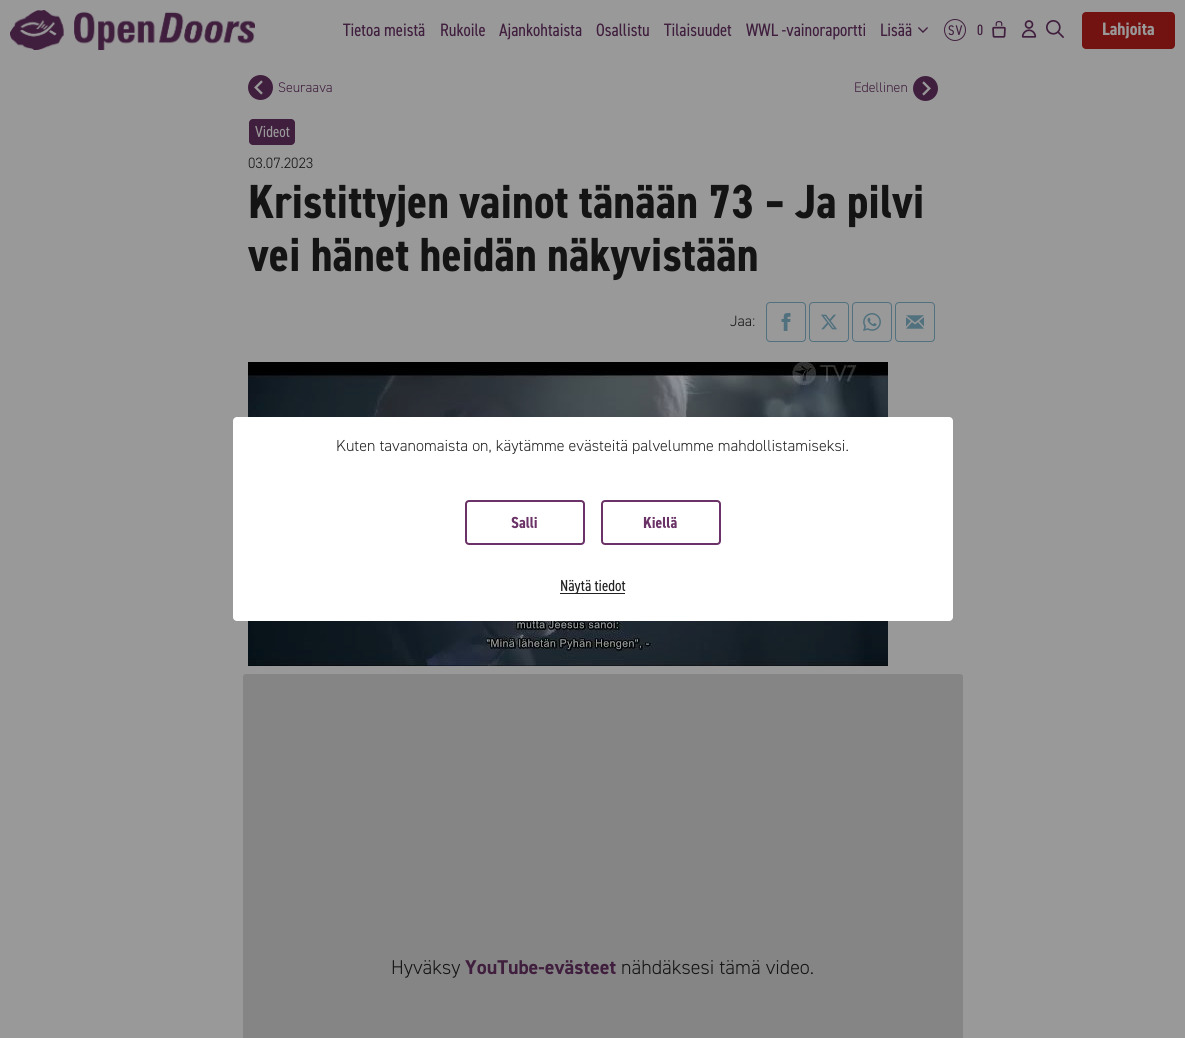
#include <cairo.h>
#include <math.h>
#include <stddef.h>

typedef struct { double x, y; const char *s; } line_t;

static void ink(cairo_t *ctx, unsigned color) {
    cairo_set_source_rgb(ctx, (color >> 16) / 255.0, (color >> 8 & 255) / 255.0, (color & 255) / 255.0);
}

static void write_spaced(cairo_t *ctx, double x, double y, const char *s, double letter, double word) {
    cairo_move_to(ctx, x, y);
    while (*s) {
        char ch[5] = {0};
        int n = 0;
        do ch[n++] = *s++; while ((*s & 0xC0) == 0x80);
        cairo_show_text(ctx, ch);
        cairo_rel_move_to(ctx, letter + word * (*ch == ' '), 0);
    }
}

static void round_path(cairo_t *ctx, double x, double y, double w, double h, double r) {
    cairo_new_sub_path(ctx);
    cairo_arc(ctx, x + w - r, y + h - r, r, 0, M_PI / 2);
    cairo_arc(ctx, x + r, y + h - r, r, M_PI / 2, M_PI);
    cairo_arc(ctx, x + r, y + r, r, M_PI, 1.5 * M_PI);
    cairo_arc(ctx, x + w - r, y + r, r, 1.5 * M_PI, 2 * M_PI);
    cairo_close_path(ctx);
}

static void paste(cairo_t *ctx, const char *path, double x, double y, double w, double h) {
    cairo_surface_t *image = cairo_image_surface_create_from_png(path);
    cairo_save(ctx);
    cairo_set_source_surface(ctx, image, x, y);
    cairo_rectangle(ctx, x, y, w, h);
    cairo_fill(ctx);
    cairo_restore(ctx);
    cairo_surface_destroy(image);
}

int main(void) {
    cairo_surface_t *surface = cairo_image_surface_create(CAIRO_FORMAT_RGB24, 1185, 1038);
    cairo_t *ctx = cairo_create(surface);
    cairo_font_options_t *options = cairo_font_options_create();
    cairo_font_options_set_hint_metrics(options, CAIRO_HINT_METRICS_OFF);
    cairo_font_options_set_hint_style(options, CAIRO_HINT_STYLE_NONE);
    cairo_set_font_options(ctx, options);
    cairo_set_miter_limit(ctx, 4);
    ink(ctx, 0x999999);
    cairo_paint(ctx);
    paste(ctx, "media/1.png", 10, 10, 245, 40);
    cairo_select_font_face(ctx, "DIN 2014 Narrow", CAIRO_FONT_SLANT_NORMAL, CAIRO_FONT_WEIGHT_NORMAL);
    cairo_set_font_size(ctx, 18);
    ink(ctx, 0x401E3E);
    {
        static const line_t items[] = {
            {343, 36, "Tietoa meistä"},
            {440, 36, "Rukoile"},
            {499, 36, "Ajankohtaista"},
            {596, 36, "Osallistu"},
            {664, 36, "Tilaisuudet"},
            {746, 36, "WWL -vainoraportti"},
            {880, 36, "Lisää"},
        };
        for (size_t i = 0; i < sizeof items / sizeof *items; i++) {
            cairo_move_to(ctx, items[i].x, items[i].y);
            cairo_show_text(ctx, items[i].s);
        }
    }
    paste(ctx, "media/2.png", 918, 27, 10, 6);
    cairo_arc(ctx, 955, 30, 10.5, 0, 2 * M_PI);
    cairo_set_line_width(ctx, 1);
    cairo_stroke(ctx);
    cairo_set_font_size(ctx, 14);
    write_spaced(ctx, 948, 35, "SV", 1, 0);
    cairo_set_font_size(ctx, 15);
    cairo_move_to(ctx, 977, 35);
    cairo_show_text(ctx, "0");
    paste(ctx, "media/3.png", 992, 21, 14, 17);
    paste(ctx, "media/4.png", 1021, 20, 16, 18);
    paste(ctx, "media/5.png", 1046, 20, 18, 18);
    ink(ctx, 0x731311);
    round_path(ctx, 1082, 12, 93, 37, 4);
    cairo_fill(ctx);
    cairo_select_font_face(ctx, "DIN 2014 Narrow", CAIRO_FONT_SLANT_NORMAL, CAIRO_FONT_WEIGHT_BOLD);
    cairo_set_font_size(ctx, 18);
    ink(ctx, 0x999999);
    cairo_move_to(ctx, 1102, 35);
    cairo_show_text(ctx, "Lahjoita");
    ink(ctx, 0x401E3E);
    cairo_new_path(ctx);
    cairo_arc(ctx, 260.5, 87.5, 12.5, 0, 2 * M_PI);
    cairo_fill(ctx);
    paste(ctx, "media/6.png", 254, 80, 9, 15);
    cairo_select_font_face(ctx, "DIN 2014 Light", CAIRO_FONT_SLANT_NORMAL, CAIRO_FONT_WEIGHT_NORMAL);
    cairo_set_font_size(ctx, 14);
    cairo_move_to(ctx, 278, 92);
    cairo_show_text(ctx, "Seuraava");
    cairo_move_to(ctx, 854, 92);
    cairo_show_text(ctx, "Edellinen");
    cairo_new_path(ctx);
    cairo_arc(ctx, 925.5, 88.5, 12.5, 0, 2 * M_PI);
    cairo_fill(ctx);
    paste(ctx, "media/7.png", 922, 81, 9, 15);
    round_path(ctx, 249, 119, 46, 26, 4);
    cairo_fill(ctx);
    cairo_select_font_face(ctx, "DIN 2014 Narrow", CAIRO_FONT_SLANT_NORMAL, CAIRO_FONT_WEIGHT_NORMAL);
    cairo_set_font_size(ctx, 16);
    ink(ctx, 0x999999);
    cairo_move_to(ctx, 255, 137);
    cairo_show_text(ctx, "Videot");
    cairo_select_font_face(ctx, "DIN 2014 Light", CAIRO_FONT_SLANT_NORMAL, CAIRO_FONT_WEIGHT_NORMAL);
    cairo_set_font_size(ctx, 15);
    ink(ctx, 0x141414);
    cairo_move_to(ctx, 248, 168);
    cairo_show_text(ctx, "03.07.2023");
    cairo_select_font_face(ctx, "DIN 2014 Narrow", CAIRO_FONT_SLANT_NORMAL, CAIRO_FONT_WEIGHT_BOLD);
    cairo_set_font_size(ctx, 48);
    cairo_move_to(ctx, 248, 218);
    cairo_show_text(ctx, "Kristittyjen vainot tänään 73 – Ja pilvi");
    cairo_move_to(ctx, 248, 271);
    cairo_show_text(ctx, "vei hänet heidän näkyvistään");
    cairo_select_font_face(ctx, "DIN 2014 Light", CAIRO_FONT_SLANT_NORMAL, CAIRO_FONT_WEIGHT_NORMAL);
    cairo_set_font_size(ctx, 15);
    cairo_move_to(ctx, 730, 326);
    cairo_show_text(ctx, "Jaa:");
    round_path(ctx, 766.5, 302.5, 39, 39, 3.5);
    ink(ctx, 0x51717E);
    cairo_stroke(ctx);
    paste(ctx, "media/8.png", 781, 313, 10, 18);
    round_path(ctx, 809.5, 302.5, 39, 39, 3.5);
    cairo_stroke(ctx);
    paste(ctx, "media/9.png", 821, 314, 16, 16);
    round_path(ctx, 852.5, 302.5, 39, 39, 3.5);
    cairo_stroke(ctx);
    paste(ctx, "media/10.png", 863, 313, 18, 18);
    round_path(ctx, 895.5, 302.5, 39, 39, 3.5);
    cairo_stroke(ctx);
    paste(ctx, "media/11.png", 906, 315, 18, 14);
    paste(ctx, "media/12.png", 248, 362, 640, 304);
    ink(ctx, 0x858585);
    round_path(ctx, 243, 674, 720, 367, 3);
    cairo_fill(ctx);
    cairo_set_font_size(ctx, 20);
    ink(ctx, 0x141414);
    cairo_move_to(ctx, 391, 974);
    cairo_show_text(ctx, "Hyväksy");
    cairo_select_font_face(ctx, "DIN 2014", CAIRO_FONT_SLANT_NORMAL, CAIRO_FONT_WEIGHT_BOLD);
    ink(ctx, 0x401E3E);
    cairo_move_to(ctx, 465, 974);
    cairo_show_text(ctx, "YouTube-evästeet");
    cairo_select_font_face(ctx, "DIN 2014 Light", CAIRO_FONT_SLANT_NORMAL, CAIRO_FONT_WEIGHT_NORMAL);
    ink(ctx, 0x141414);
    cairo_move_to(ctx, 621, 974);
    cairo_show_text(ctx, "nähdäksesi tämä video.");
    ink(ctx, 0xFFFFFF);
    round_path(ctx, 233, 417, 720, 204, 4);
    cairo_fill(ctx);
    cairo_set_font_size(ctx, 16);
    ink(ctx, 0x222222);
    cairo_move_to(ctx, 336, 451);
    cairo_show_text(ctx, "Kuten tavanomaista on, käytämme evästeitä palvelumme mahdollistamiseksi.");
    round_path(ctx, 466, 501, 118, 43, 3);
    ink(ctx, 0x6B3267);
    cairo_set_line_width(ctx, 2);
    cairo_stroke(ctx);
    cairo_select_font_face(ctx, "DIN 2014 Narrow", CAIRO_FONT_SLANT_NORMAL, CAIRO_FONT_WEIGHT_BOLD);
    cairo_move_to(ctx, 511, 528);
    cairo_show_text(ctx, "Salli");
    round_path(ctx, 602, 501, 118, 43, 3);
    cairo_stroke(ctx);
    cairo_move_to(ctx, 643, 528);
    cairo_show_text(ctx, "Kiellä");
    ink(ctx, 0x222222);
    cairo_rectangle(ctx, 560, 593, 65, 1);
    cairo_fill(ctx);
    cairo_select_font_face(ctx, "DIN 2014 Narrow", CAIRO_FONT_SLANT_NORMAL, CAIRO_FONT_WEIGHT_NORMAL);
    cairo_move_to(ctx, 560, 591);
    cairo_show_text(ctx, "Näytä tiedot");
    cairo_surface_write_to_png(surface, "image.png");
    cairo_font_options_destroy(options);
    cairo_destroy(ctx);
    cairo_surface_destroy(surface);
    return 0;
}
